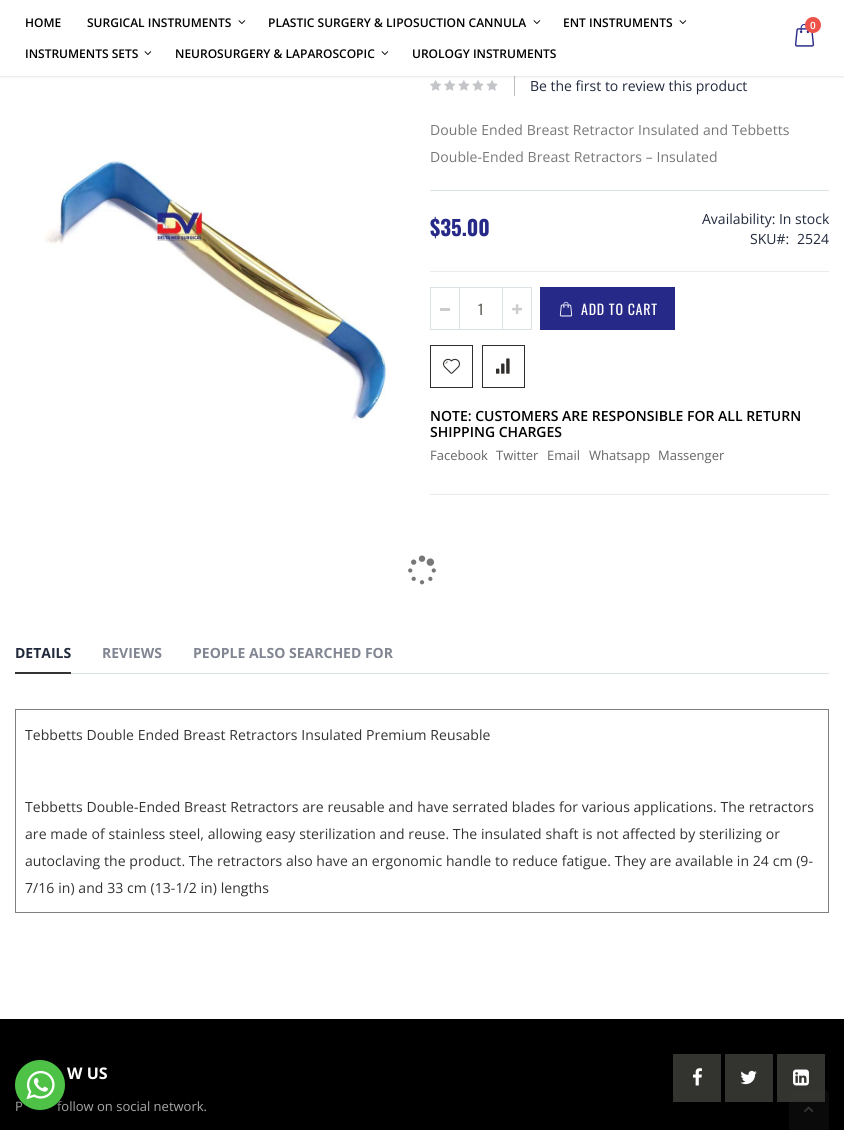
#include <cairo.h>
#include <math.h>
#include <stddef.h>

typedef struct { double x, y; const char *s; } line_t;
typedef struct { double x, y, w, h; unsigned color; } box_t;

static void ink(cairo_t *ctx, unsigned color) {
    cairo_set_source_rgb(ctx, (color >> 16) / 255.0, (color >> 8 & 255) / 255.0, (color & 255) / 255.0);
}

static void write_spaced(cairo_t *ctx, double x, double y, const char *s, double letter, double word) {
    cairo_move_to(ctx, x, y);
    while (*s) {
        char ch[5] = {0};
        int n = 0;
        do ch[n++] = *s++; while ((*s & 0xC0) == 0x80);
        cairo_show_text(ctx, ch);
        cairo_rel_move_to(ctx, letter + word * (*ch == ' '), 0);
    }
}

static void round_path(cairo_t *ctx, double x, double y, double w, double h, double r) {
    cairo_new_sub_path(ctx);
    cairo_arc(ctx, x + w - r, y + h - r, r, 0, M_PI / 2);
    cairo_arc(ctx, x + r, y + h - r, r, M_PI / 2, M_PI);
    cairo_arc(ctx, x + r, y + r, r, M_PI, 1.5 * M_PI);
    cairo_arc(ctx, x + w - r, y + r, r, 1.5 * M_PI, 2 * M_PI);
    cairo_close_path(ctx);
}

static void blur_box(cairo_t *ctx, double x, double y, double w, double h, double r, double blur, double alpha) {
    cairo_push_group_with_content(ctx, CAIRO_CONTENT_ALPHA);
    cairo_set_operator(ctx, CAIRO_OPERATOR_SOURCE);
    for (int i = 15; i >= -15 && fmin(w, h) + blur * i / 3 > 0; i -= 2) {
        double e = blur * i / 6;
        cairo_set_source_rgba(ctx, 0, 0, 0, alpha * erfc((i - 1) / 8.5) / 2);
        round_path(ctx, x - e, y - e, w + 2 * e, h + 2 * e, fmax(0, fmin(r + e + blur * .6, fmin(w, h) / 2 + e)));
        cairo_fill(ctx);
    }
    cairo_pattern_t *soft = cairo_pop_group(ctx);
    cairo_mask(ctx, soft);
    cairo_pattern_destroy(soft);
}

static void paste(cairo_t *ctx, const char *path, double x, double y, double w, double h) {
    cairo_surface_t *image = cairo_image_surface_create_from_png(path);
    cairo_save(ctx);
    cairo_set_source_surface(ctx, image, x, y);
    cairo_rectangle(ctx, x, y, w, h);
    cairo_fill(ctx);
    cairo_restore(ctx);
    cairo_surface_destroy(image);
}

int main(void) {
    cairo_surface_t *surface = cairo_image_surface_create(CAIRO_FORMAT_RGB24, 844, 1130);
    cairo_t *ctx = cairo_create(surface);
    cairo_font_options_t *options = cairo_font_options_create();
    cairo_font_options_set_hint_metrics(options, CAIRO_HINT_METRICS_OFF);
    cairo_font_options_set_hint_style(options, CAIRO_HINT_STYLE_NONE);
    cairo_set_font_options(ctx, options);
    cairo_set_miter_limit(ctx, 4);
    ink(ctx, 0xFFFFFF);
    cairo_paint(ctx);
    paste(ctx, "media/5.png", 430, 80, 68, 11);
    ink(ctx, 0xBDBDBD);
    cairo_rectangle(ctx, 514, 76, 1, 20);
    cairo_fill(ctx);
    ink(ctx, 0x000000);
    blur_box(ctx, 0, 1, 844, 76, 0, 1, 0.1);
    ink(ctx, 0xFFFFFF);
    cairo_rectangle(ctx, 0, 0, 844, 76);
    cairo_fill(ctx);
    cairo_select_font_face(ctx, "Open Sans SemiBold", CAIRO_FONT_SLANT_NORMAL, CAIRO_FONT_WEIGHT_NORMAL);
    cairo_set_font_size(ctx, 12);
    ink(ctx, 0x000000);
    cairo_move_to(ctx, 25, 27);
    cairo_show_text(ctx, "HOME");
    cairo_move_to(ctx, 87, 27);
    cairo_show_text(ctx, "SURGICAL INSTRUMENTS");
    paste(ctx, "media/1.png", 238, 20, 8, 4);
    cairo_move_to(ctx, 268, 27);
    cairo_show_text(ctx, "PLASTIC SURGERY & LIPOSUCTION CANNULA");
    paste(ctx, "media/1.png", 533, 20, 8, 4);
    cairo_move_to(ctx, 563, 27);
    cairo_show_text(ctx, "ENT INSTRUMENTS");
    paste(ctx, "media/1.png", 679, 20, 8, 4);
    cairo_move_to(ctx, 25, 58);
    cairo_show_text(ctx, "INSTRUMENTS SETS");
    paste(ctx, "media/1.png", 144, 51, 8, 4);
    cairo_move_to(ctx, 175, 58);
    cairo_show_text(ctx, "NEUROSURGERY & LAPAROSCOPIC");
    paste(ctx, "media/1.png", 381, 51, 8, 4);
    cairo_move_to(ctx, 412, 58);
    cairo_show_text(ctx, "UROLOGY INSTRUMENTS");
    paste(ctx, "media/2.png", 794, 23, 21, 24);
    ink(ctx, 0xED5348);
    cairo_arc(ctx, 813, 25, 8, 0, 2 * M_PI);
    cairo_fill(ctx);
    cairo_set_font_size(ctx, 10);
    ink(ctx, 0xFFFFFF);
    cairo_move_to(ctx, 810, 29);
    cairo_show_text(ctx, "0");
    paste(ctx, "media/3.png", 44, 160, 347, 263);
    paste(ctx, "media/4.png", 408, 555, 28, 30);
    cairo_select_font_face(ctx, "Open Sans", CAIRO_FONT_SLANT_NORMAL, CAIRO_FONT_WEIGHT_NORMAL);
    cairo_set_font_size(ctx, 14);
    ink(ctx, 0x21293C);
    cairo_move_to(ctx, 530, 91);
    cairo_show_text(ctx, "Be the first to review this product");
    ink(ctx, 0xDAE2E6);
    cairo_rectangle(ctx, 430, 190, 399, 1);
    cairo_fill(ctx);
    ink(ctx, 0x777777);
    write_spaced(ctx, 430, 135, "Double Ended Breast Retractor Insulated and Tebbetts", 0.07, 0);
    write_spaced(ctx, 430, 162, "Double-Ended Breast Retractors – Insulated", 0.07, 0);
    ink(ctx, 0xEBEBEB);
    cairo_rectangle(ctx, 430, 271, 399, 1);
    cairo_fill(ctx);
    cairo_select_font_face(ctx, "Oswald", CAIRO_FONT_SLANT_NORMAL, CAIRO_FONT_WEIGHT_BOLD);
    cairo_set_font_size(ctx, 21);
    ink(ctx, 0x272988);
    cairo_move_to(ctx, 430, 236);
    cairo_show_text(ctx, "$35.00");
    cairo_select_font_face(ctx, "Open Sans", CAIRO_FONT_SLANT_NORMAL, CAIRO_FONT_WEIGHT_NORMAL);
    cairo_set_font_size(ctx, 14);
    ink(ctx, 0x21293C);
    {
        static const line_t items[] = {
            {702, 224, "Availability: In stock"},
            {750, 244, "SKU#:"},
            {797, 244, "2524"},
        };
        for (size_t i = 0; i < sizeof items / sizeof *items; i++) {
            cairo_move_to(ctx, items[i].x, items[i].y);
            cairo_show_text(ctx, items[i].s);
        }
    }
    cairo_rectangle(ctx, 459.5, 287.5, 43, 42);
    ink(ctx, 0xDAE2E6);
    cairo_set_line_width(ctx, 1);
    cairo_stroke(ctx);
    cairo_rectangle(ctx, 430.5, 287.5, 29, 42);
    cairo_stroke(ctx);
    ink(ctx, 0xCCCCCC);
    cairo_rectangle(ctx, 440, 308, 10, 3);
    cairo_fill(ctx);
    cairo_rectangle(ctx, 502.5, 287.5, 29, 42);
    ink(ctx, 0xDAE2E6);
    cairo_stroke(ctx);
    paste(ctx, "media/6.png", 512, 304, 10, 10);
    cairo_select_font_face(ctx, "Oswald", CAIRO_FONT_SLANT_NORMAL, CAIRO_FONT_WEIGHT_NORMAL);
    ink(ctx, 0x61605A);
    cairo_move_to(ctx, 478, 315);
    cairo_show_text(ctx, "1");
    ink(ctx, 0x272988);
    cairo_rectangle(ctx, 540, 287, 135, 43);
    cairo_fill(ctx);
    paste(ctx, "media/7.png", 559, 301, 14, 16);
    ink(ctx, 0xFFFFFF);
    write_spaced(ctx, 581, 315, "ADD TO CART", 0.75, 0);
    cairo_rectangle(ctx, 430.5, 345.5, 42, 42);
    ink(ctx, 0x302E2A);
    cairo_stroke(ctx);
    paste(ctx, "media/8.png", 443, 358, 17, 16);
    cairo_rectangle(ctx, 482.5, 345.5, 42, 42);
    cairo_stroke(ctx);
    paste(ctx, "media/9.png", 496, 358, 14, 16);
    cairo_select_font_face(ctx, "Open Sans SemiBold", CAIRO_FONT_SLANT_NORMAL, CAIRO_FONT_WEIGHT_NORMAL);
    ink(ctx, 0x000000);
    cairo_move_to(ctx, 430, 421);
    cairo_show_text(ctx, "NOTE: CUSTOMERS ARE RESPONSIBLE FOR ALL RETURN");
    cairo_move_to(ctx, 430, 437);
    cairo_show_text(ctx, "SHIPPING CHARGES");
    cairo_select_font_face(ctx, "Open Sans", CAIRO_FONT_SLANT_NORMAL, CAIRO_FONT_WEIGHT_NORMAL);
    cairo_set_font_size(ctx, 13);
    ink(ctx, 0x666666);
    {
        static const line_t items[] = {
            {430, 460, "Facebook"},
            {496, 460, "Twitter"},
            {547, 460, "Email"},
            {589, 460, "Whatsapp"},
            {658, 460, "Massenger"},
        };
        for (size_t i = 0; i < sizeof items / sizeof *items; i++) {
            cairo_move_to(ctx, items[i].x, items[i].y);
            cairo_show_text(ctx, items[i].s);
        }
    }
    ink(ctx, 0xEBEBEB);
    cairo_rectangle(ctx, 430, 494, 399, 1);
    cairo_fill(ctx);
    ink(ctx, 0x333333);
    cairo_rectangle(ctx, 15, 672, 56, 2);
    cairo_fill(ctx);
    cairo_select_font_face(ctx, "Open Sans", CAIRO_FONT_SLANT_NORMAL, CAIRO_FONT_WEIGHT_BOLD);
    cairo_set_font_size(ctx, 14);
    ink(ctx, 0x21293C);
    cairo_move_to(ctx, 15, 658);
    cairo_show_text(ctx, "DETAILS");
    ink(ctx, 0x818692);
    cairo_move_to(ctx, 102, 658);
    cairo_show_text(ctx, "REVIEWS");
    cairo_move_to(ctx, 193, 658);
    cairo_show_text(ctx, "PEOPLE ALSO SEARCHED FOR");
    {
        static const box_t items[] = {
            {71, 673, 758, 1, 0xDAE2E6},
            {15, 709, 814, 1, 0x808080},
            {828, 709, 1, 204, 0x808080},
            {15, 912, 814, 1, 0x808080},
            {15, 709, 1, 204, 0x808080},
        };
        for (size_t i = 0; i < sizeof items / sizeof *items; i++) {
            ink(ctx, items[i].color);
            cairo_rectangle(ctx, items[i].x, items[i].y, items[i].w, items[i].h);
            cairo_fill(ctx);
        }
    }
    cairo_select_font_face(ctx, "Open Sans", CAIRO_FONT_SLANT_NORMAL, CAIRO_FONT_WEIGHT_NORMAL);
    ink(ctx, 0x333333);
    {
        static const line_t items[] = {
            {25, 740, "Tebbetts Double Ended Breast Retractors Insulated Premium Reusable"},
            {25, 812, "Tebbetts Double-Ended Breast Retractors are reusable and have serrated blades for various applications. The retractors"},
            {25, 839, "are made of stainless steel, allowing easy sterilization and reuse. The insulated shaft is not affected by sterilizing or"},
            {25, 866, "autoclaving the product. The retractors also have an ergonomic handle to reduce fatigue. They are available in 24 cm (9-"},
            {25, 893, "7/16 in) and 33 cm (13-1/2 in) lengths"},
        };
        for (size_t i = 0; i < sizeof items / sizeof *items; i++) {
            write_spaced(ctx, items[i].x, items[i].y, items[i].s, 0.07, 0);
        }
    }
    ink(ctx, 0x000000);
    cairo_rectangle(ctx, 0, 1019, 844, 111);
    cairo_fill(ctx);
    cairo_select_font_face(ctx, "Open Sans", CAIRO_FONT_SLANT_NORMAL, CAIRO_FONT_WEIGHT_BOLD);
    cairo_set_font_size(ctx, 16);
    ink(ctx, 0xFFFFFF);
    cairo_move_to(ctx, 67, 1079);
    cairo_show_text(ctx, "W US");
    cairo_select_font_face(ctx, "Open Sans", CAIRO_FONT_SLANT_NORMAL, CAIRO_FONT_WEIGHT_NORMAL);
    cairo_set_font_size(ctx, 13);
    ink(ctx, 0xA8A8A8);
    cairo_move_to(ctx, 15, 1111);
    cairo_show_text(ctx, "P");
    cairo_move_to(ctx, 57, 1111);
    cairo_show_text(ctx, "follow on social network.");
    ink(ctx, 0x33332F);
    cairo_rectangle(ctx, 673, 1054, 48, 48);
    cairo_fill(ctx);
    paste(ctx, "media/10.png", 693, 1068, 9, 18);
    cairo_rectangle(ctx, 725, 1054, 48, 48);
    cairo_fill(ctx);
    paste(ctx, "media/11.png", 740, 1070, 17, 15);
    cairo_rectangle(ctx, 777, 1054, 48, 48);
    cairo_fill(ctx);
    paste(ctx, "media/12.png", 793, 1069, 16, 17);
    cairo_set_source_rgba(ctx, 0.251, 0.251, 0.251, 0.17);
    cairo_new_path(ctx);
    cairo_move_to(ctx, 794, 1090);
    cairo_line_to(ctx, 824, 1090);
    cairo_curve_to(ctx, 827, 1090, 829, 1092, 829, 1095);
    cairo_line_to(ctx, 829, 1130);
    cairo_line_to(ctx, 789, 1130);
    cairo_line_to(ctx, 789, 1095);
    cairo_curve_to(ctx, 789, 1092, 791, 1090, 794, 1090);
    cairo_close_path(ctx);
    cairo_fill(ctx);
    paste(ctx, "media/13.png", 804, 1106, 10, 6);
    ink(ctx, 0x000000);
    blur_box(ctx, 17, 1062, 50, 50, 25, 3, 0.4);
    ink(ctx, 0x4DC247);
    cairo_arc(ctx, 40, 1085, 25, 0, 2 * M_PI);
    cairo_fill(ctx);
    paste(ctx, "media/14.png", 26, 1070, 29, 30);
    cairo_surface_write_to_png(surface, "image.png");
    cairo_font_options_destroy(options);
    cairo_destroy(ctx);
    cairo_surface_destroy(surface);
    return 0;
}
